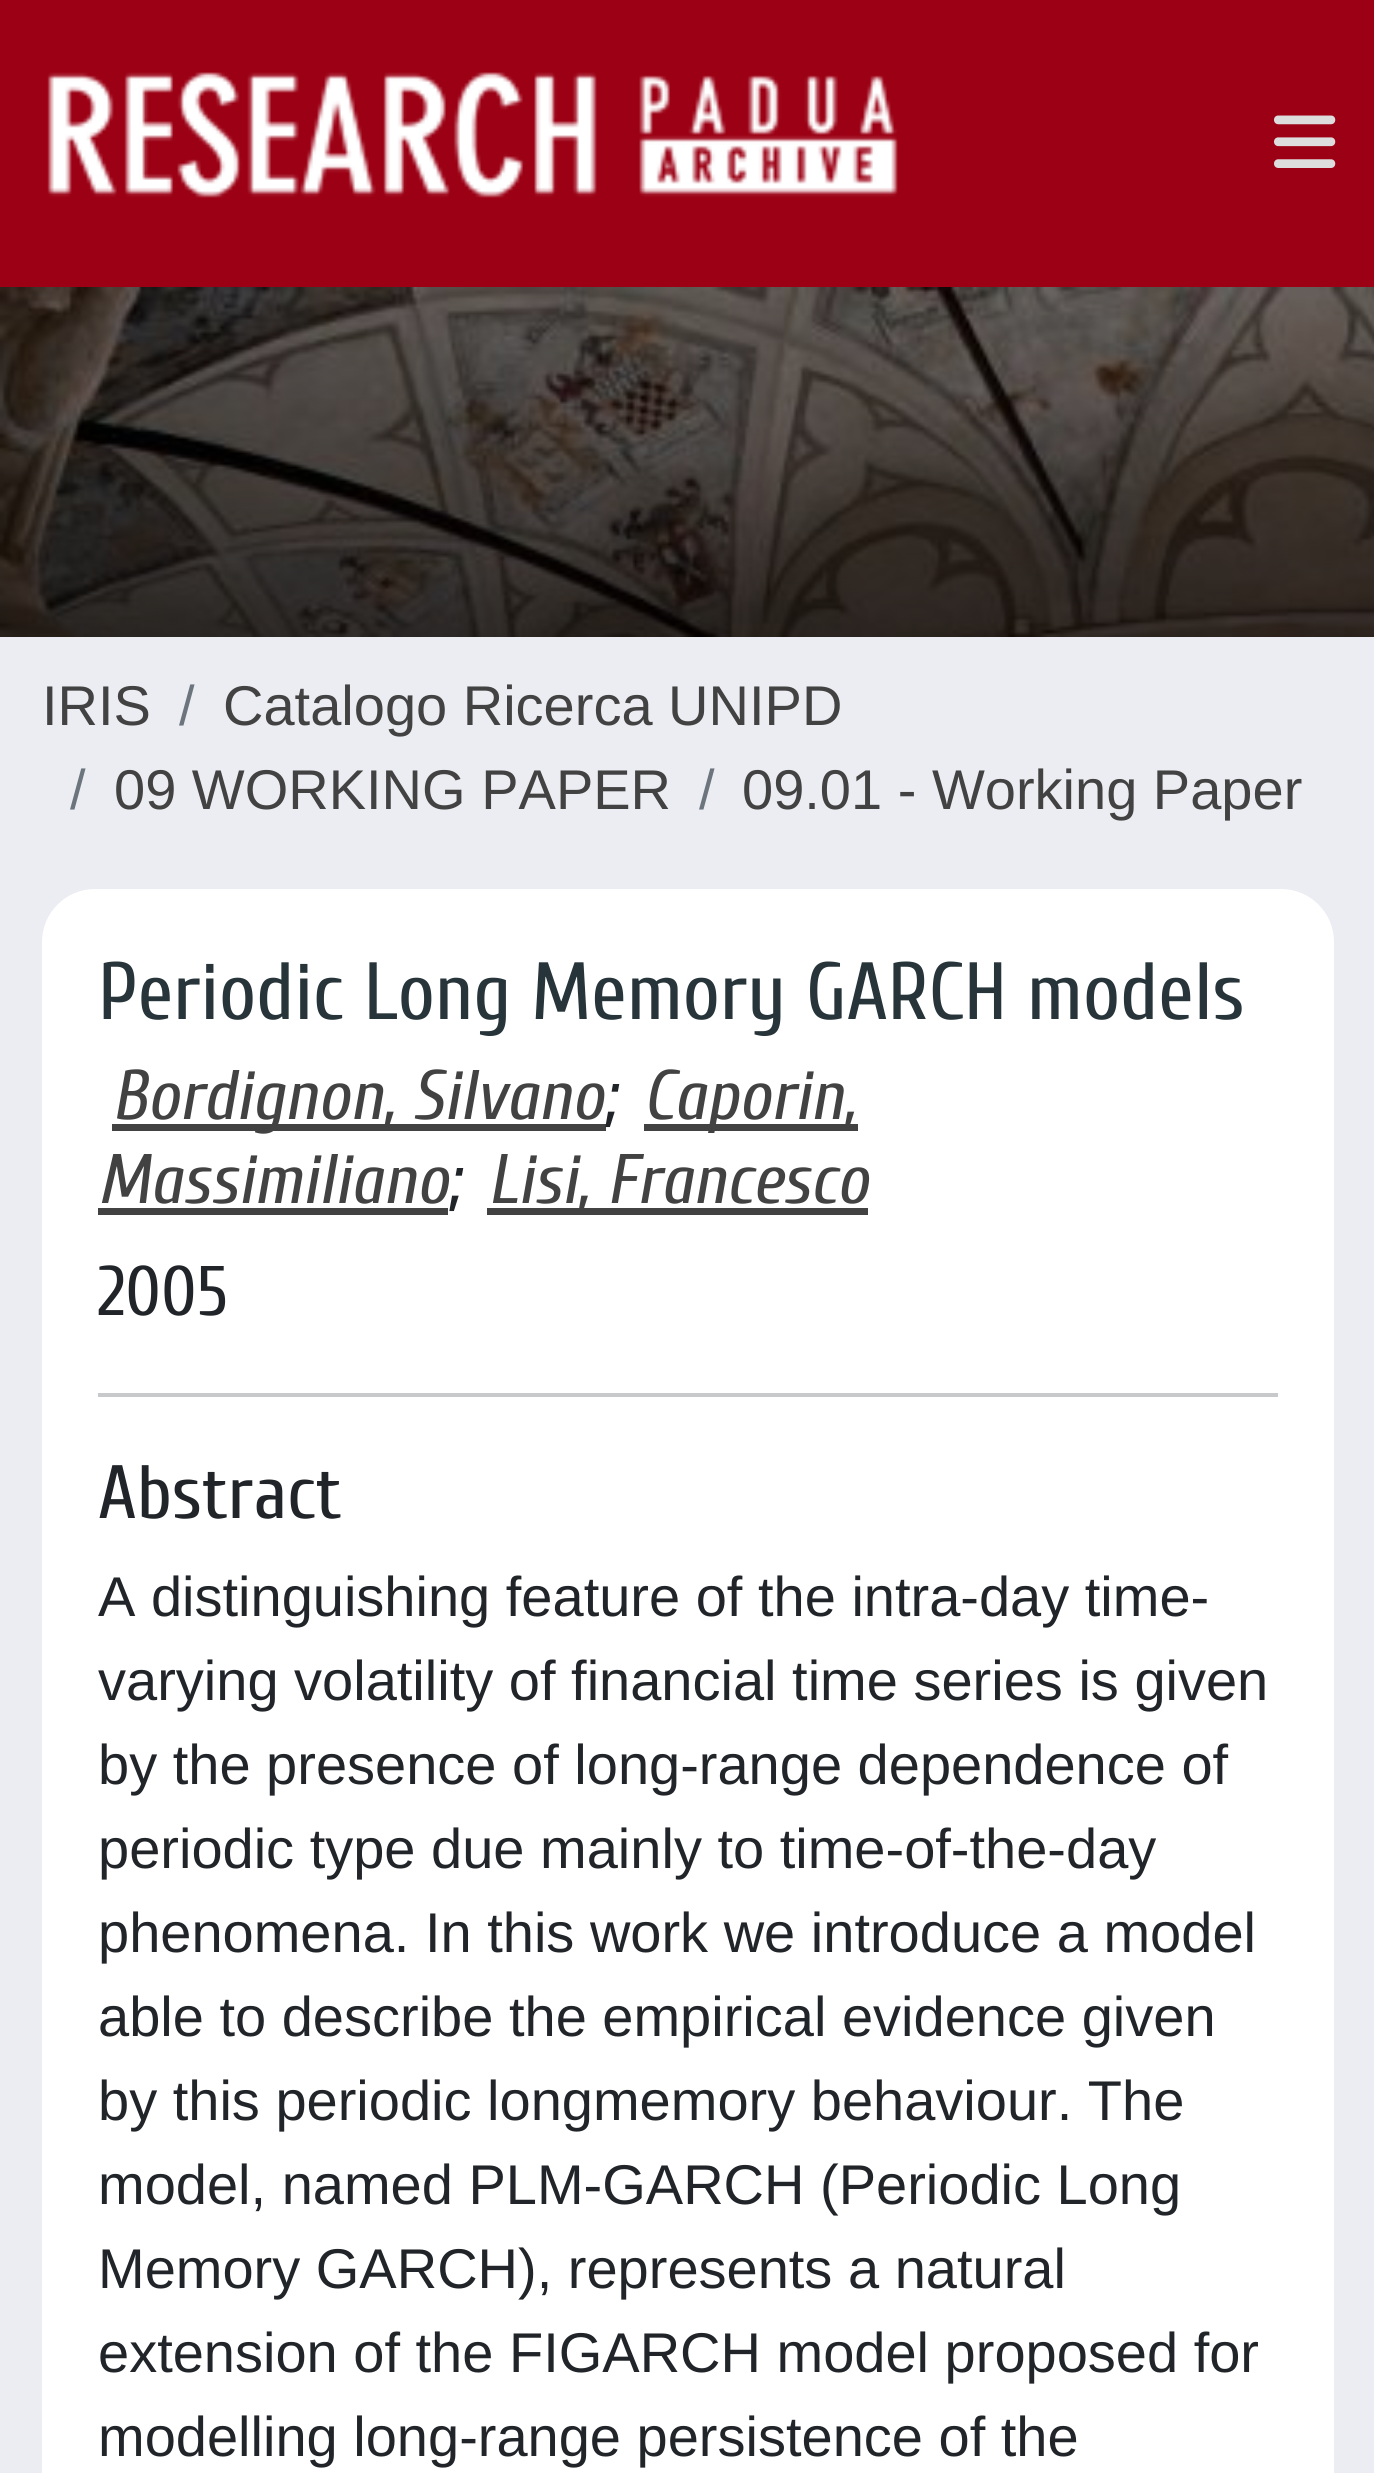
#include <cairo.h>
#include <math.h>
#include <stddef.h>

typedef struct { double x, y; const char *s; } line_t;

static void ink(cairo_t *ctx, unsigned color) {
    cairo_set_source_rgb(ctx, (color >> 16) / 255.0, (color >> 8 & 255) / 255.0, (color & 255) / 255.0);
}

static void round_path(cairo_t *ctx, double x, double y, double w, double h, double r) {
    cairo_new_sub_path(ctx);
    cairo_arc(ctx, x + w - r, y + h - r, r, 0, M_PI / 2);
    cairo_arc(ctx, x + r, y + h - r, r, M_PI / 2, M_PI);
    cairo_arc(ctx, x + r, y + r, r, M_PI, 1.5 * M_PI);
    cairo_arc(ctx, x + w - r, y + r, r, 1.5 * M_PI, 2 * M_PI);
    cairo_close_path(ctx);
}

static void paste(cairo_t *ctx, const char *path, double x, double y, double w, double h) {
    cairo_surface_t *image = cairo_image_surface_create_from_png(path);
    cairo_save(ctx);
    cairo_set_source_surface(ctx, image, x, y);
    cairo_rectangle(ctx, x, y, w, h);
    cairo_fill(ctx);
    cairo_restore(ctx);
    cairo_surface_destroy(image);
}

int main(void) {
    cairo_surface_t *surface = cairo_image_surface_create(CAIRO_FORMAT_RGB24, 1374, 2473);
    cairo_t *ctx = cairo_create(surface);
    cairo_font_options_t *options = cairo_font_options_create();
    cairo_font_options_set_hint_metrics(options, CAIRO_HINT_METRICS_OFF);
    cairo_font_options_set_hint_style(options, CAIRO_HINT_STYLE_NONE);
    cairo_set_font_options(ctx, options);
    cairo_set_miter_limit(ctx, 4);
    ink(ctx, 0xECEDF2);
    cairo_paint(ctx);
    ink(ctx, 0x9B0014);
    cairo_rectangle(ctx, 0, 0, 1374, 287);
    cairo_fill(ctx);
    paste(ctx, "media/1.png", 47, 72, 851, 126);
    paste(ctx, "media/2.png", 1274, 115, 62, 53);
    paste(ctx, "media/3.png", 0, 287, 1374, 350);
    cairo_select_font_face(ctx, "Liberation Sans", CAIRO_FONT_SLANT_NORMAL, CAIRO_FONT_WEIGHT_NORMAL);
    cairo_set_font_size(ctx, 56);
    ink(ctx, 0x424242);
    cairo_move_to(ctx, 42, 725);
    cairo_show_text(ctx, "IRIS");
    ink(ctx, 0x6C757D);
    cairo_move_to(ctx, 179, 725);
    cairo_show_text(ctx, "/");
    ink(ctx, 0x424242);
    cairo_move_to(ctx, 223, 725);
    cairo_show_text(ctx, "Catalogo Ricerca UNIPD");
    ink(ctx, 0x6C757D);
    cairo_move_to(ctx, 70, 809);
    cairo_show_text(ctx, "/");
    ink(ctx, 0x424242);
    cairo_move_to(ctx, 114, 809);
    cairo_show_text(ctx, "09 WORKING PAPER");
    ink(ctx, 0x6C757D);
    cairo_move_to(ctx, 699, 809);
    cairo_show_text(ctx, "/");
    ink(ctx, 0x424242);
    cairo_move_to(ctx, 742, 809);
    cairo_show_text(ctx, "09.01 - Working Paper");
    ink(ctx, 0xFFFFFF);
    round_path(ctx, 42, 889, 1292, 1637, 53);
    cairo_fill(ctx);
    cairo_select_font_face(ctx, "Cuprum", CAIRO_FONT_SLANT_NORMAL, CAIRO_FONT_WEIGHT_NORMAL);
    cairo_set_font_size(ctx, 81);
    ink(ctx, 0x27353A);
    cairo_move_to(ctx, 98, 1019);
    cairo_show_text(ctx, "Periodic Long Memory GARCH models");
    ink(ctx, 0x424242);
    cairo_rectangle(ctx, 112, 1124, 494, 7);
    cairo_fill(ctx);
    cairo_select_font_face(ctx, "Cuprum", CAIRO_FONT_SLANT_ITALIC, CAIRO_FONT_WEIGHT_NORMAL);
    cairo_set_font_size(ctx, 70);
    cairo_move_to(ctx, 112, 1119);
    cairo_show_text(ctx, "Bordignon, Silvano");
    ink(ctx, 0x212529);
    cairo_move_to(ctx, 604, 1119);
    cairo_show_text(ctx, ";");
    ink(ctx, 0x424242);
    cairo_rectangle(ctx, 644, 1124, 214, 7);
    cairo_fill(ctx);
    cairo_move_to(ctx, 643, 1119);
    cairo_show_text(ctx, "Caporin,");
    cairo_move_to(ctx, 98, 1203);
    cairo_show_text(ctx, "Massimiliano");
    ink(ctx, 0x212529);
    cairo_move_to(ctx, 448, 1203);
    cairo_show_text(ctx, ";");
    ink(ctx, 0x424242);
    cairo_rectangle(ctx, 98, 1208, 350, 7);
    cairo_fill(ctx);
    cairo_rectangle(ctx, 487, 1208, 381, 7);
    cairo_fill(ctx);
    cairo_move_to(ctx, 488, 1203);
    cairo_show_text(ctx, "Lisi, Francesco");
    cairo_select_font_face(ctx, "Cuprum", CAIRO_FONT_SLANT_NORMAL, CAIRO_FONT_WEIGHT_NORMAL);
    ink(ctx, 0x212529);
    cairo_move_to(ctx, 98, 1315);
    cairo_show_text(ctx, "2005");
    ink(ctx, 0xC8C9CA);
    cairo_rectangle(ctx, 98, 1393, 1180, 4);
    cairo_fill(ctx);
    cairo_set_font_size(ctx, 75.5);
    ink(ctx, 0x212529);
    cairo_move_to(ctx, 98, 1518);
    cairo_show_text(ctx, "Abstract");
    cairo_select_font_face(ctx, "Liberation Sans", CAIRO_FONT_SLANT_NORMAL, CAIRO_FONT_WEIGHT_NORMAL);
    cairo_set_font_size(ctx, 56);
    {
        static const line_t items[] = {
            {98, 1616, "A distinguishing feature of the intra-day time-"},
            {98, 1700, "varying volatility of financial time series is given"},
            {98, 1784, "by the presence of long-range dependence of"},
            {98, 1868, "periodic type due mainly to time-of-the-day"},
            {98, 1952, "phenomena. In this work we introduce a model"},
            {98, 2036, "able to describe the empirical evidence given"},
            {98, 2120, "by this periodic longmemory behaviour. The"},
            {98, 2204, "model, named PLM-GARCH (Periodic Long"},
            {98, 2288, "Memory GARCH), represents a natural"},
            {98, 2372, "extension of the FIGARCH model proposed for"},
            {98, 2456, "modelling long-range persistence of the"},
        };
        for (size_t i = 0; i < sizeof items / sizeof *items; i++) {
            cairo_move_to(ctx, items[i].x, items[i].y);
            cairo_show_text(ctx, items[i].s);
        }
    }
    cairo_surface_write_to_png(surface, "image.png");
    cairo_font_options_destroy(options);
    cairo_destroy(ctx);
    cairo_surface_destroy(surface);
    return 0;
}
